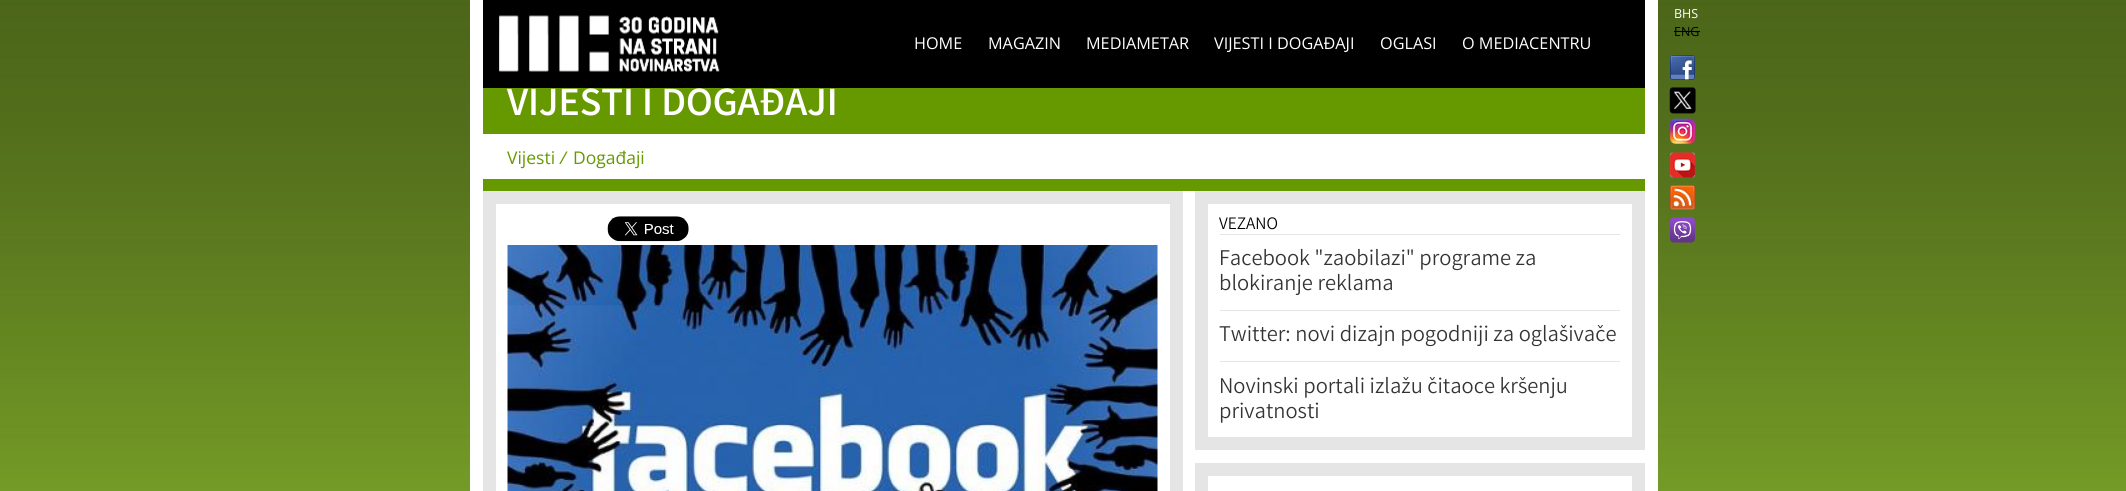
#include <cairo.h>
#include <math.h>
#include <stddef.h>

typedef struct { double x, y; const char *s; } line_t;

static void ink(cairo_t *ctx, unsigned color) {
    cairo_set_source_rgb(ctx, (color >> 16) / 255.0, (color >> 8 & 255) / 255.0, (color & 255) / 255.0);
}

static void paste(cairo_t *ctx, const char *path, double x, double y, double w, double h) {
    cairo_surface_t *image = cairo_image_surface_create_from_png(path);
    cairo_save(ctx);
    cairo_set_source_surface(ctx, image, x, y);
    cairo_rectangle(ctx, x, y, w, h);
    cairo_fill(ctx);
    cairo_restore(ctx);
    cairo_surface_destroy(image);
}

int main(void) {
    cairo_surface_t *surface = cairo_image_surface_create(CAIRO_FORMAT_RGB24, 2126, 491);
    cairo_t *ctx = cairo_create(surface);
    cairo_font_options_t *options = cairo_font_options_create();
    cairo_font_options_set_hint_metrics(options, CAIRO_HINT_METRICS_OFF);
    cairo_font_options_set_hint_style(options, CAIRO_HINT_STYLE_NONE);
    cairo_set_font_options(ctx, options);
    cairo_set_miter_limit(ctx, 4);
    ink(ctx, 0xFFFFFF);
    cairo_paint(ctx);
    paste(ctx, "media/1.png", 0, 0, 2126, 491);
    ink(ctx, 0xFFFFFF);
    cairo_rectangle(ctx, 470, 0, 1188, 491);
    cairo_fill(ctx);
    ink(ctx, 0x000000);
    cairo_rectangle(ctx, 483, 0, 1162, 88);
    cairo_fill(ctx);
    paste(ctx, "media/2.png", 499, 15, 221, 57);
    cairo_select_font_face(ctx, "Open Sans", CAIRO_FONT_SLANT_NORMAL, CAIRO_FONT_WEIGHT_NORMAL);
    cairo_set_font_size(ctx, 16.25);
    ink(ctx, 0xFFFFFF);
    {
        static const line_t items[] = {
            {914, 49, "HOME"},
            {988, 49, "MAGAZIN"},
            {1086, 49, "MEDIAMETAR"},
            {1214, 49, "VIJESTI I DOGAĐAJI"},
            {1380, 49, "OGLASI"},
            {1462, 49, "O MEDIACENTRU"},
        };
        for (size_t i = 0; i < sizeof items / sizeof *items; i++) {
            cairo_move_to(ctx, items[i].x, items[i].y);
            cairo_show_text(ctx, items[i].s);
        }
    }
    cairo_set_font_size(ctx, 12.5);
    cairo_move_to(ctx, 1674, 18);
    cairo_show_text(ctx, "BHS");
    ink(ctx, 0x000000);
    cairo_move_to(ctx, 1674, 36);
    cairo_show_text(ctx, "ENG");
    cairo_rectangle(ctx, 1674, 31, 26, 1);
    cairo_fill(ctx);
    paste(ctx, "media/3.png", 1670, 55, 25, 25);
    paste(ctx, "media/4.png", 1669, 87, 27, 27);
    paste(ctx, "media/5.png", 1670, 118, 25, 26);
    paste(ctx, "media/6.png", 1670, 152, 25, 26);
    paste(ctx, "media/7.png", 1670, 185, 25, 25);
    paste(ctx, "media/8.png", 1670, 217, 25, 26);
    ink(ctx, 0x669900);
    cairo_rectangle(ctx, 483, 88, 1162, 46);
    cairo_fill(ctx);
    cairo_select_font_face(ctx, "Varta", CAIRO_FONT_SLANT_NORMAL, CAIRO_FONT_WEIGHT_BOLD);
    cairo_set_font_size(ctx, 40);
    ink(ctx, 0xFFFFFF);
    cairo_move_to(ctx, 507, 115);
    cairo_show_text(ctx, "VIJESTI I DOGAĐAJI");
    ink(ctx, 0x669900);
    cairo_rectangle(ctx, 483, 179, 1162, 12);
    cairo_fill(ctx);
    cairo_select_font_face(ctx, "Open Sans", CAIRO_FONT_SLANT_NORMAL, CAIRO_FONT_WEIGHT_NORMAL);
    cairo_set_font_size(ctx, 17.5);
    cairo_move_to(ctx, 507, 164);
    cairo_show_text(ctx, "Vijesti");
    cairo_select_font_face(ctx, "Open Sans", CAIRO_FONT_SLANT_ITALIC, CAIRO_FONT_WEIGHT_NORMAL);
    cairo_move_to(ctx, 560, 164);
    cairo_show_text(ctx, "/");
    cairo_select_font_face(ctx, "Open Sans", CAIRO_FONT_SLANT_NORMAL, CAIRO_FONT_WEIGHT_NORMAL);
    cairo_move_to(ctx, 573, 164);
    cairo_show_text(ctx, "Događaji");
    cairo_rectangle(ctx, 489.5, 197.5, 687, 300);
    ink(ctx, 0xE5E5E5);
    cairo_set_line_width(ctx, 13);
    cairo_stroke(ctx);
    paste(ctx, "media/9.png", 607, 216, 82, 26);
    paste(ctx, "media/10.png", 507, 245, 651, 246);
    cairo_rectangle(ctx, 1201.5, 197.5, 437, 246);
    cairo_stroke(ctx);
    cairo_rectangle(ctx, 1220, 234, 400, 1);
    cairo_fill(ctx);
    cairo_select_font_face(ctx, "Varta Light", CAIRO_FONT_SLANT_NORMAL, CAIRO_FONT_WEIGHT_NORMAL);
    ink(ctx, 0x000000);
    cairo_move_to(ctx, 1219, 229);
    cairo_show_text(ctx, "VEZANO");
    ink(ctx, 0xE5E5E5);
    cairo_rectangle(ctx, 1220, 310, 400, 1);
    cairo_fill(ctx);
    cairo_set_font_size(ctx, 22.5);
    ink(ctx, 0x333333);
    cairo_move_to(ctx, 1219, 265);
    cairo_show_text(ctx, "Facebook \"zaobilazi\" programe za");
    cairo_move_to(ctx, 1219, 290);
    cairo_show_text(ctx, "blokiranje reklama");
    ink(ctx, 0xE5E5E5);
    cairo_rectangle(ctx, 1220, 361, 400, 1);
    cairo_fill(ctx);
    ink(ctx, 0x333333);
    {
        static const line_t items[] = {
            {1219, 341, "Twitter: novi dizajn pogodniji za oglašivače"},
            {1219, 393, "Novinski portali izlažu čitaoce kršenju"},
            {1219, 418, "privatnosti"},
        };
        for (size_t i = 0; i < sizeof items / sizeof *items; i++) {
            cairo_move_to(ctx, items[i].x, items[i].y);
            cairo_show_text(ctx, items[i].s);
        }
    }
    cairo_rectangle(ctx, 1201.5, 469.5, 437, 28);
    ink(ctx, 0xE5E5E5);
    cairo_stroke(ctx);
    cairo_surface_write_to_png(surface, "image.png");
    cairo_font_options_destroy(options);
    cairo_destroy(ctx);
    cairo_surface_destroy(surface);
    return 0;
}
